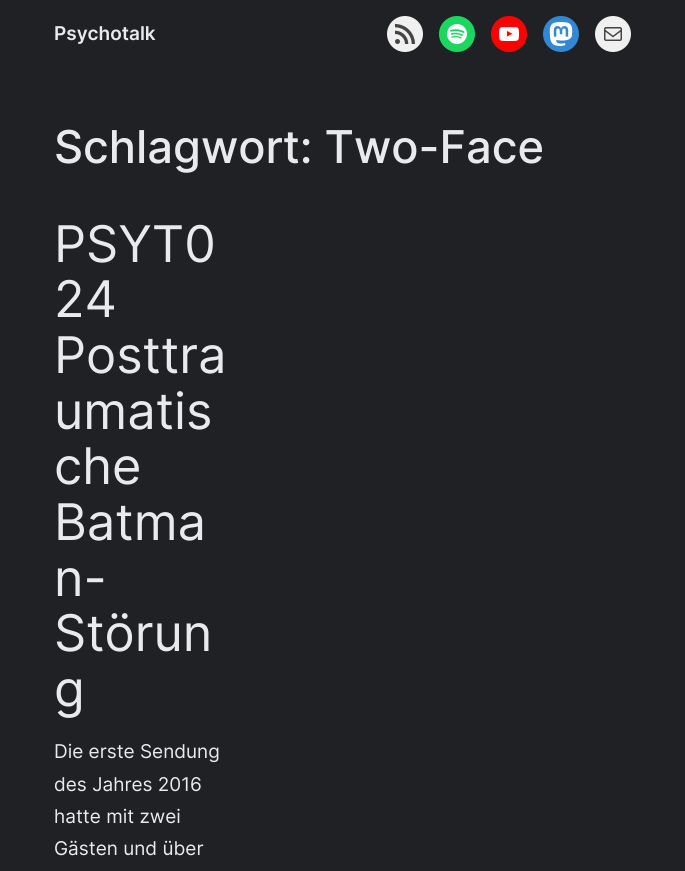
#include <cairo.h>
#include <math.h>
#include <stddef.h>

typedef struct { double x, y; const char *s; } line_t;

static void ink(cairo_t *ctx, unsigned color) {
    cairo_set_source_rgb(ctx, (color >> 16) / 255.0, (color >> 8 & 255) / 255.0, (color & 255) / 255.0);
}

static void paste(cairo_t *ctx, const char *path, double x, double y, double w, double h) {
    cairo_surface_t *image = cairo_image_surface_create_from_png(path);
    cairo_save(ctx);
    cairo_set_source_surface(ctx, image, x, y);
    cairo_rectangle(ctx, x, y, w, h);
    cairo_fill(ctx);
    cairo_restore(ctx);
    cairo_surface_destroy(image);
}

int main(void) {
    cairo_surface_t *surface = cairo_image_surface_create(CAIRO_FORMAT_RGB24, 685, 871);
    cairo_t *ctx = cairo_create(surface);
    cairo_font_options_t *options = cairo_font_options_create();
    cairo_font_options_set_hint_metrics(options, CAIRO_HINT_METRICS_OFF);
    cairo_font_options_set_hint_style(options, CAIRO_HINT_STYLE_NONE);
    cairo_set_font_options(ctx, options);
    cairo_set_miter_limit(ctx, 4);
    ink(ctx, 0x202124);
    cairo_paint(ctx);
    cairo_select_font_face(ctx, "Inter SemiBold", CAIRO_FONT_SLANT_NORMAL, CAIRO_FONT_WEIGHT_NORMAL);
    cairo_set_font_size(ctx, 19);
    ink(ctx, 0xE8EAED);
    cairo_move_to(ctx, 54, 40);
    cairo_show_text(ctx, "Psychotalk");
    ink(ctx, 0xF0F0F0);
    cairo_new_path(ctx);
    cairo_arc(ctx, 405, 34, 18, 0, 2 * M_PI);
    cairo_fill(ctx);
    paste(ctx, "media/1.png", 395, 24, 20, 20);
    ink(ctx, 0x1BD760);
    cairo_arc(ctx, 457, 34, 18, 0, 2 * M_PI);
    cairo_fill(ctx);
    paste(ctx, "media/2.png", 447, 24, 20, 20);
    ink(ctx, 0xFF0000);
    cairo_arc(ctx, 509, 34, 18, 0, 2 * M_PI);
    cairo_fill(ctx);
    paste(ctx, "media/3.png", 499, 27, 20, 14);
    ink(ctx, 0x3288D4);
    cairo_arc(ctx, 561, 34, 18, 0, 2 * M_PI);
    cairo_fill(ctx);
    paste(ctx, "media/4.png", 549, 22, 24, 24);
    ink(ctx, 0xF0F0F0);
    cairo_arc(ctx, 613, 34, 18, 0, 2 * M_PI);
    cairo_fill(ctx);
    paste(ctx, "media/5.png", 604, 27, 18, 14);
    cairo_select_font_face(ctx, "Inter Medium", CAIRO_FONT_SLANT_NORMAL, CAIRO_FONT_WEIGHT_NORMAL);
    cairo_set_font_size(ctx, 45.25);
    ink(ctx, 0xE8EAED);
    cairo_move_to(ctx, 54, 163);
    cairo_show_text(ctx, "Schlagwort: Two-Face");
    cairo_select_font_face(ctx, "Inter", CAIRO_FONT_SLANT_NORMAL, CAIRO_FONT_WEIGHT_NORMAL);
    cairo_set_font_size(ctx, 50.5);
    {
        static const line_t items[] = {
            {54, 262, "PSYT0"},
            {54, 317, "24"},
            {54, 373, "Posttra"},
            {54, 429, "umatis"},
            {54, 484, "che"},
            {54, 540, "Batma"},
            {54, 596, "n-"},
            {54, 651, "Störun"},
            {54, 707, "g"},
        };
        for (size_t i = 0; i < sizeof items / sizeof *items; i++) {
            cairo_move_to(ctx, items[i].x, items[i].y);
            cairo_show_text(ctx, items[i].s);
        }
    }
    cairo_set_font_size(ctx, 19);
    {
        static const line_t items[] = {
            {54, 758, "Die erste Sendung"},
            {54, 791, "des Jahres 2016"},
            {54, 823, "hatte mit zwei"},
            {54, 855, "Gästen und über"},
        };
        for (size_t i = 0; i < sizeof items / sizeof *items; i++) {
            cairo_move_to(ctx, items[i].x, items[i].y);
            cairo_show_text(ctx, items[i].s);
        }
    }
    cairo_surface_write_to_png(surface, "image.png");
    cairo_font_options_destroy(options);
    cairo_destroy(ctx);
    cairo_surface_destroy(surface);
    return 0;
}
